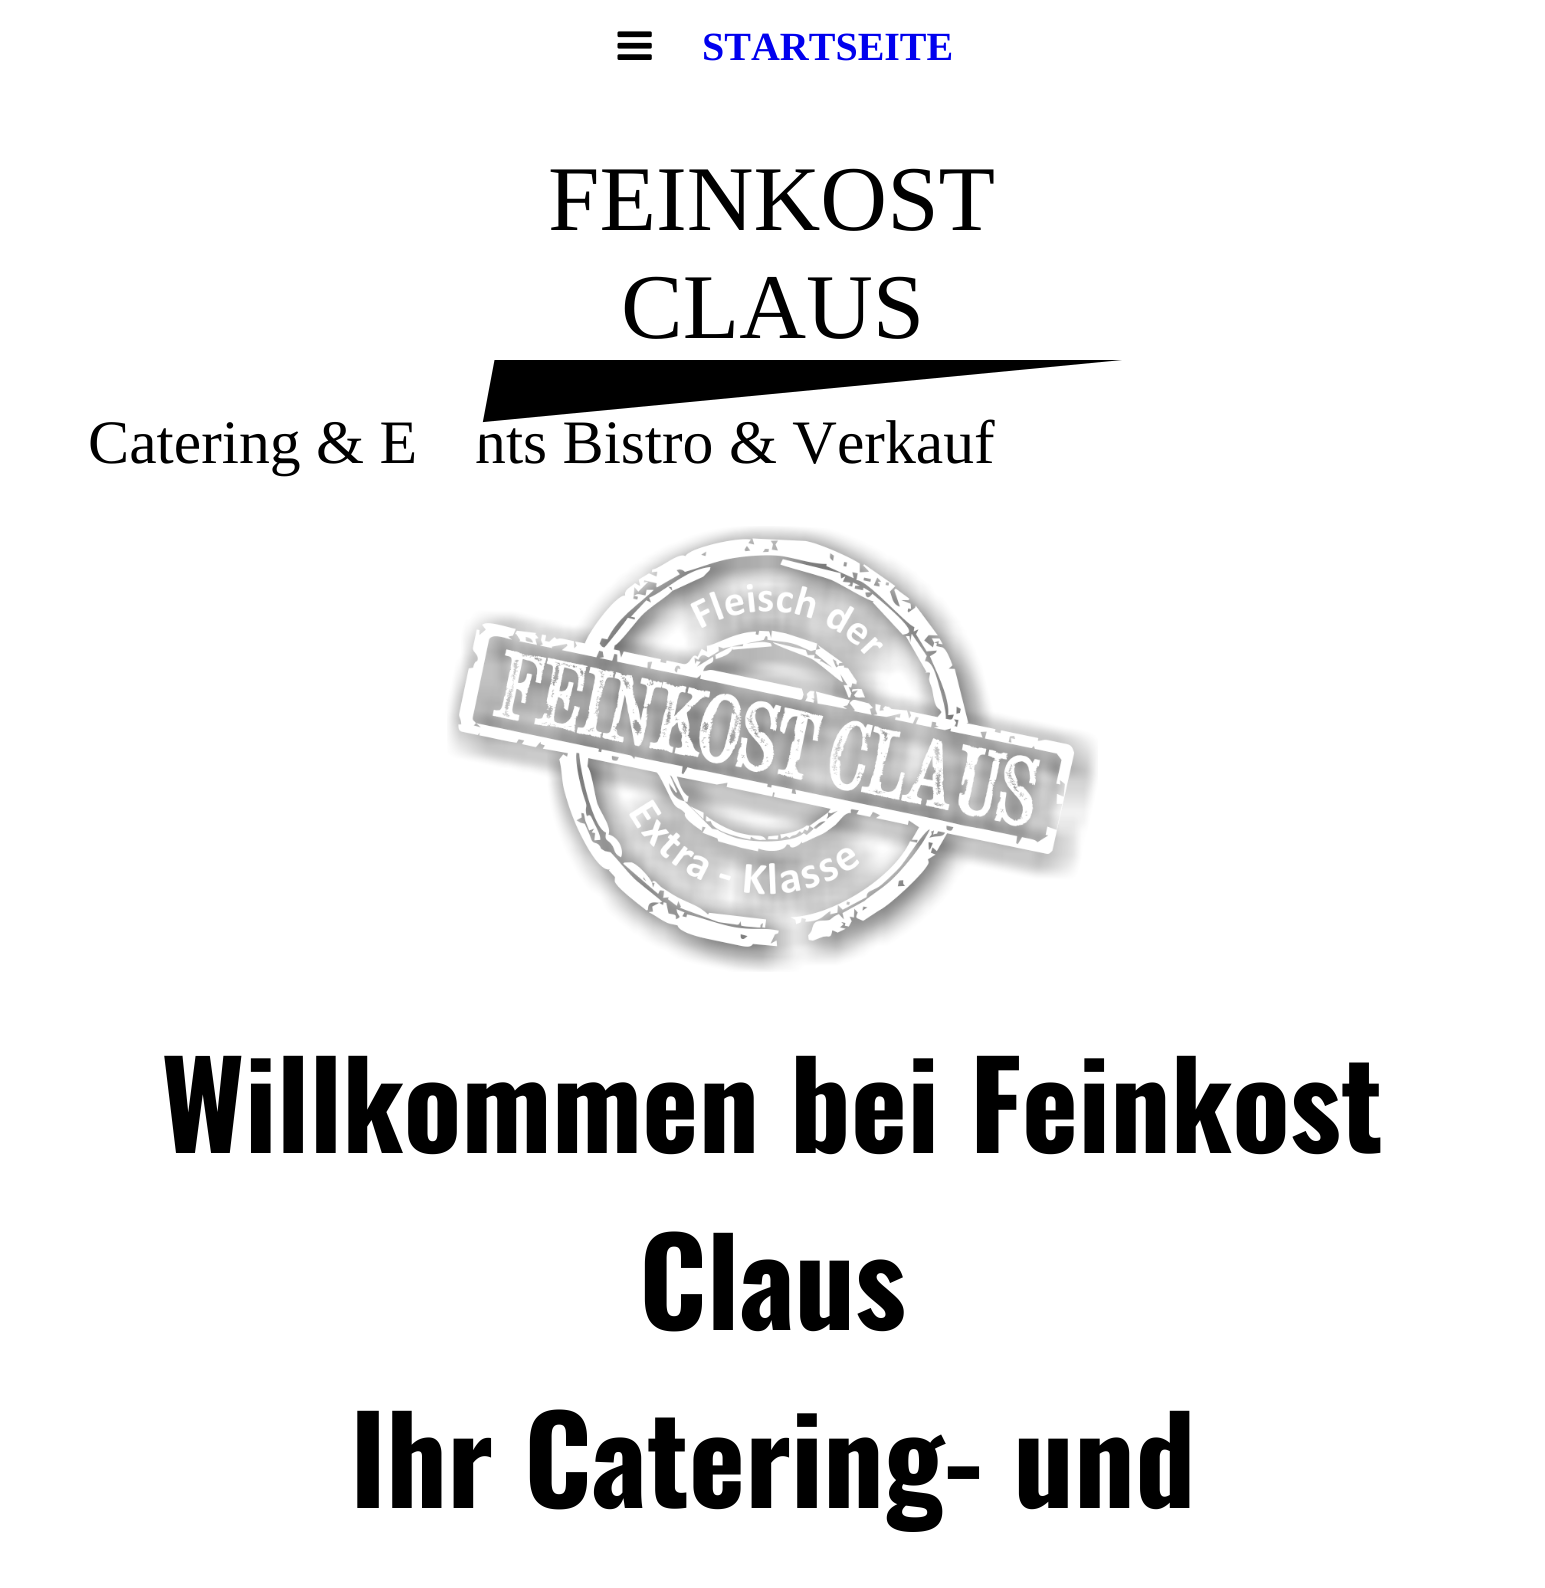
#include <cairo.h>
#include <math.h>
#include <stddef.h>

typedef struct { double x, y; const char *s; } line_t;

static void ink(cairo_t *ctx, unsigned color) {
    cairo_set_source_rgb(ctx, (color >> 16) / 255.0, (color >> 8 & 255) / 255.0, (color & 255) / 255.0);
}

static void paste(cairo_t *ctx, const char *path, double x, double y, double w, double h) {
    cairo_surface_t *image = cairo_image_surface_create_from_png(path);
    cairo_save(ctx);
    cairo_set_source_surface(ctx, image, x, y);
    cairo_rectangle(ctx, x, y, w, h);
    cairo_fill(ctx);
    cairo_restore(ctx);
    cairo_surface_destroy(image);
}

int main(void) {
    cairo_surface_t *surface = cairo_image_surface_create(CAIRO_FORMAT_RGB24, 1545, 1588);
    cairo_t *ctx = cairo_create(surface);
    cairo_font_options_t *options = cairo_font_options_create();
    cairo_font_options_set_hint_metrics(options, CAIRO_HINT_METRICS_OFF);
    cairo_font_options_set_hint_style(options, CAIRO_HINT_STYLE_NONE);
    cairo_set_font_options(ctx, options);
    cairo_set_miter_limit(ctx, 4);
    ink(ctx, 0xFFFFFF);
    cairo_paint(ctx);
    paste(ctx, "media/1.png", 617, 31, 35, 29);
    cairo_select_font_face(ctx, "Liberation Serif", CAIRO_FONT_SLANT_NORMAL, CAIRO_FONT_WEIGHT_BOLD);
    cairo_set_font_size(ctx, 40);
    ink(ctx, 0x0000EE);
    cairo_move_to(ctx, 702, 60);
    cairo_show_text(ctx, "STARTSEITE");
    ink(ctx, 0x000000);
    cairo_new_path(ctx);
    cairo_move_to(ctx, 422, 428);
    cairo_line_to(ctx, 422, 360);
    cairo_line_to(ctx, 1122, 360);
    cairo_close_path(ctx);
    cairo_fill(ctx);
    cairo_select_font_face(ctx, "Liberation Serif", CAIRO_FONT_SLANT_NORMAL, CAIRO_FONT_WEIGHT_NORMAL);
    cairo_set_font_size(ctx, 61.75);
    cairo_move_to(ctx, 475, 463);
    cairo_show_text(ctx, "nts Bistro & Verkauf");
    paste(ctx, "media/2.png", 447, 526, 651, 446);
    ink(ctx, 0xFFFFFF);
    cairo_new_path(ctx);
    cairo_move_to(ctx, 422, 745);
    cairo_line_to(ctx, 422, 145);
    cairo_line_to(ctx, 535, 145);
    cairo_close_path(ctx);
    cairo_fill(ctx);
    cairo_set_font_size(ctx, 92.5);
    ink(ctx, 0x000000);
    cairo_move_to(ctx, 548, 230);
    cairo_show_text(ctx, "FEINKOST");
    cairo_move_to(ctx, 621, 338);
    cairo_show_text(ctx, "CLAUS");
    cairo_set_font_size(ctx, 61.75);
    cairo_move_to(ctx, 88, 463);
    cairo_show_text(ctx, "Catering & E");
    cairo_select_font_face(ctx, "Oswald", CAIRO_FONT_SLANT_NORMAL, CAIRO_FONT_WEIGHT_BOLD);
    cairo_set_font_size(ctx, 120);
    {
        static const line_t items[] = {
            {161, 1153, "Willkommen bei Feinkost"},
            {639, 1330, "Claus"},
            {350, 1508, "Ihr Catering- und"},
        };
        for (size_t i = 0; i < sizeof items / sizeof *items; i++) {
            cairo_move_to(ctx, items[i].x, items[i].y);
            cairo_show_text(ctx, items[i].s);
        }
    }
    cairo_surface_write_to_png(surface, "image.png");
    cairo_font_options_destroy(options);
    cairo_destroy(ctx);
    cairo_surface_destroy(surface);
    return 0;
}
